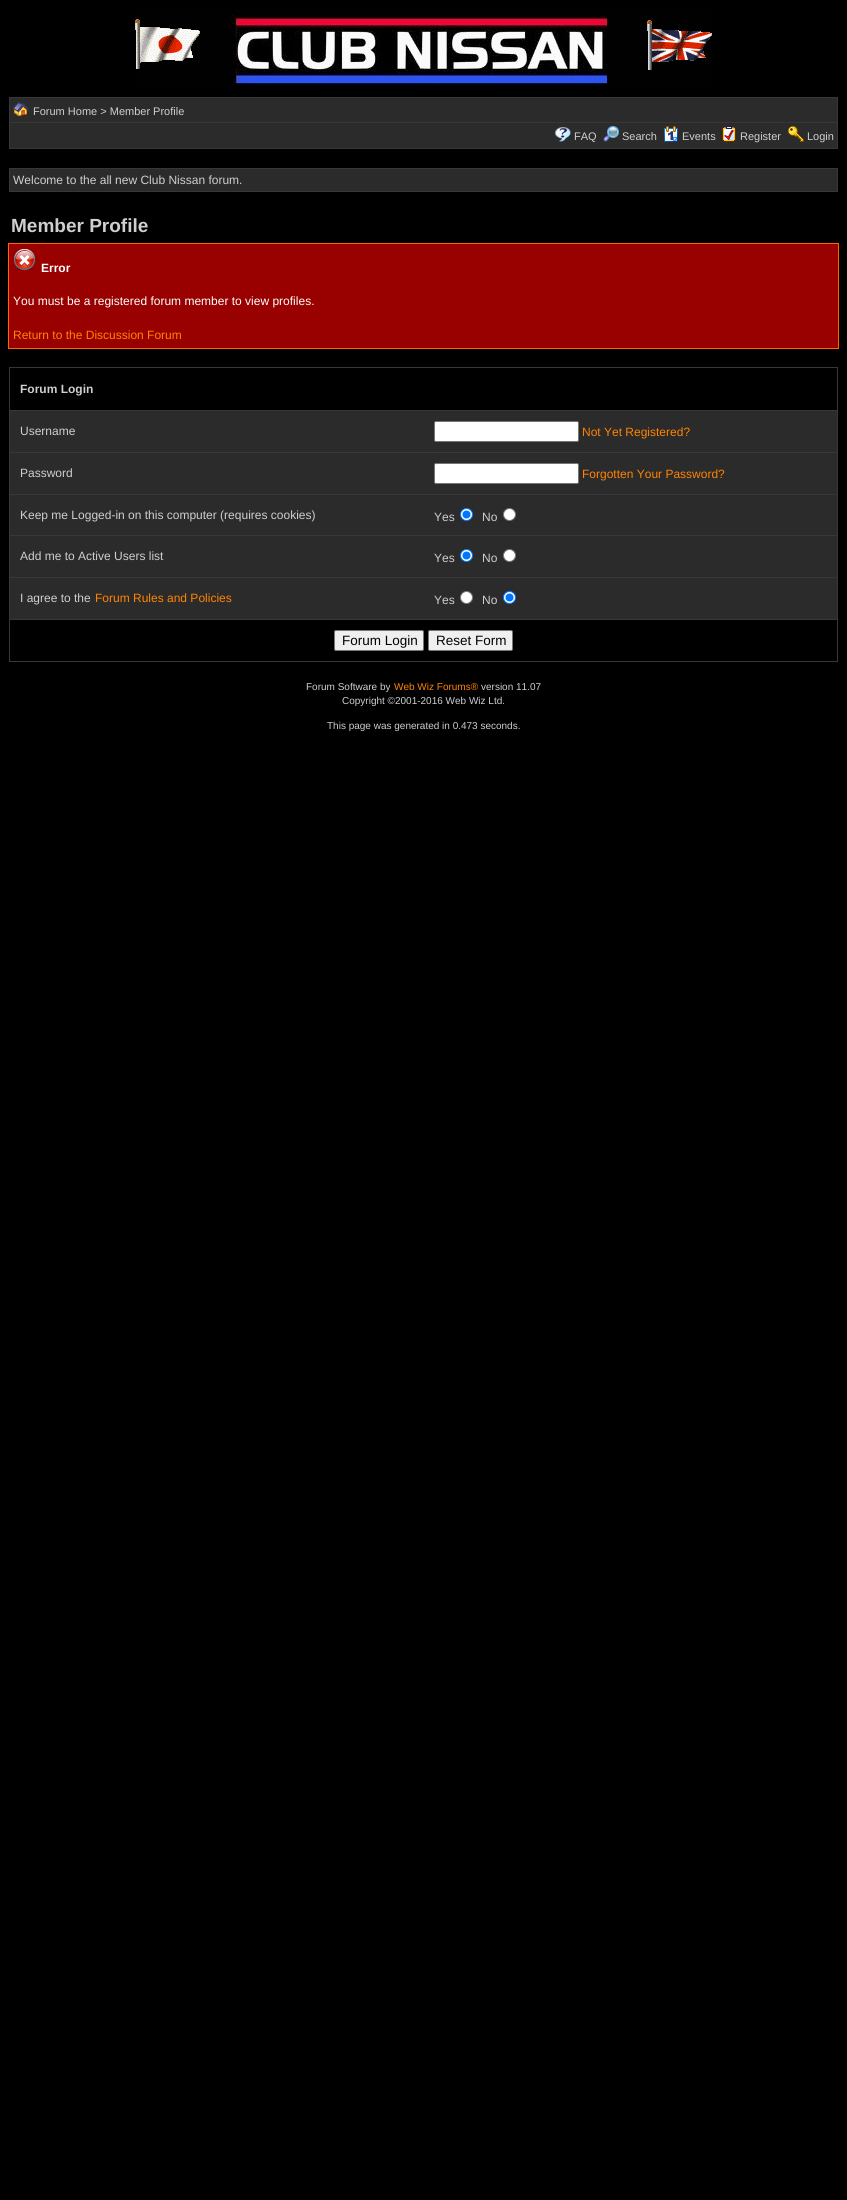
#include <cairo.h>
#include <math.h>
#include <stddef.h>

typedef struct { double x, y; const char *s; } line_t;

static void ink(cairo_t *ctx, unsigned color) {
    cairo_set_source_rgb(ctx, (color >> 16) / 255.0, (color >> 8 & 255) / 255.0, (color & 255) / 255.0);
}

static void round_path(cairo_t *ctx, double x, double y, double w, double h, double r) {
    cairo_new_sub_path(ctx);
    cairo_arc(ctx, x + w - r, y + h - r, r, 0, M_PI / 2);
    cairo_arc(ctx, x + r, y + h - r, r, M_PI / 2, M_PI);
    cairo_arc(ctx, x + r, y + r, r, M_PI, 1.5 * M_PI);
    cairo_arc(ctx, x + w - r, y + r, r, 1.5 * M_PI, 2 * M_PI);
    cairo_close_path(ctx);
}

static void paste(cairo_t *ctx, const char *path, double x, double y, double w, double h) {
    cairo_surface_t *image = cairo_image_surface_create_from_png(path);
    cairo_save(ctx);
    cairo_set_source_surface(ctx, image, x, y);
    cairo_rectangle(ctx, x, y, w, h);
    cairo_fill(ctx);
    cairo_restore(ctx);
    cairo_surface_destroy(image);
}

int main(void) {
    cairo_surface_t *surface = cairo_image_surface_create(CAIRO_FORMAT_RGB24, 847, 2200);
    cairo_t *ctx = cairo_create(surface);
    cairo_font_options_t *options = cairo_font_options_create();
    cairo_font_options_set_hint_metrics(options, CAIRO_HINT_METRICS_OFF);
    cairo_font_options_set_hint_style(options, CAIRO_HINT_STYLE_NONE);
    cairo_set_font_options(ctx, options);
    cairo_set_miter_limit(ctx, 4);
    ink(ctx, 0x000000);
    cairo_paint(ctx);
    paste(ctx, "media/1.png", 135, 10, 577, 76);
    ink(ctx, 0x373737);
    cairo_rectangle(ctx, 9, 97, 829, 52);
    cairo_fill(ctx);
    ink(ctx, 0x2B2B2B);
    cairo_rectangle(ctx, 10, 98, 827, 24);
    cairo_fill(ctx);
    paste(ctx, "media/2.png", 13, 102, 16, 14);
    cairo_select_font_face(ctx, "Liberation Sans", CAIRO_FONT_SLANT_NORMAL, CAIRO_FONT_WEIGHT_NORMAL);
    cairo_set_font_size(ctx, 11);
    ink(ctx, 0xCFCFCF);
    cairo_move_to(ctx, 33, 115);
    cairo_show_text(ctx, "Forum Home > Member Profile");
    ink(ctx, 0x2B2B2B);
    cairo_rectangle(ctx, 10, 123, 827, 25);
    cairo_fill(ctx);
    paste(ctx, "media/3.png", 555, 127, 16, 15);
    ink(ctx, 0xCFCFCF);
    cairo_move_to(ctx, 574, 140);
    cairo_show_text(ctx, "FAQ");
    paste(ctx, "media/4.png", 603, 126, 16, 16);
    cairo_move_to(ctx, 622, 140);
    cairo_show_text(ctx, "Search");
    paste(ctx, "media/5.png", 664, 126, 14, 16);
    cairo_move_to(ctx, 682, 140);
    cairo_show_text(ctx, "Events");
    paste(ctx, "media/6.png", 722, 126, 14, 16);
    cairo_move_to(ctx, 740, 140);
    cairo_show_text(ctx, "Register");
    paste(ctx, "media/7.png", 788, 126, 16, 16);
    cairo_move_to(ctx, 807, 140);
    cairo_show_text(ctx, "Login");
    ink(ctx, 0x373737);
    cairo_rectangle(ctx, 9, 168, 829, 24);
    cairo_fill(ctx);
    ink(ctx, 0x2B2B2B);
    cairo_rectangle(ctx, 10, 169, 827, 22);
    cairo_fill(ctx);
    cairo_set_font_size(ctx, 12);
    ink(ctx, 0xCFCFCF);
    cairo_move_to(ctx, 13, 184);
    cairo_show_text(ctx, "Welcome to the all new Club Nissan forum.");
    cairo_select_font_face(ctx, "Liberation Sans", CAIRO_FONT_SLANT_NORMAL, CAIRO_FONT_WEIGHT_BOLD);
    cairo_set_font_size(ctx, 19);
    cairo_move_to(ctx, 11, 232);
    cairo_show_text(ctx, "Member Profile");
    ink(ctx, 0x990000);
    cairo_rectangle(ctx, 8.5, 243.5, 830, 105);
    cairo_fill_preserve(ctx);
    ink(ctx, 0xFF6600);
    cairo_set_line_width(ctx, 1);
    cairo_stroke(ctx);
    paste(ctx, "media/8.png", 14, 249, 21, 21);
    cairo_set_font_size(ctx, 12);
    ink(ctx, 0xFFFFFF);
    cairo_move_to(ctx, 41, 272);
    cairo_show_text(ctx, "Error");
    cairo_select_font_face(ctx, "Liberation Sans", CAIRO_FONT_SLANT_NORMAL, CAIRO_FONT_WEIGHT_NORMAL);
    cairo_move_to(ctx, 13, 305);
    cairo_show_text(ctx, "You must be a registered forum member to view profiles.");
    ink(ctx, 0xFF8400);
    cairo_move_to(ctx, 13, 339);
    cairo_show_text(ctx, "Return to the Discussion Forum");
    ink(ctx, 0x373737);
    cairo_rectangle(ctx, 9, 367, 829, 295);
    cairo_fill(ctx);
    ink(ctx, 0x000000);
    cairo_rectangle(ctx, 10, 368, 827, 42);
    cairo_fill(ctx);
    cairo_select_font_face(ctx, "Liberation Sans", CAIRO_FONT_SLANT_NORMAL, CAIRO_FONT_WEIGHT_BOLD);
    ink(ctx, 0xCFCFCF);
    cairo_move_to(ctx, 20, 393);
    cairo_show_text(ctx, "Forum Login");
    ink(ctx, 0x2B2B2B);
    cairo_rectangle(ctx, 10, 411, 827, 41);
    cairo_fill(ctx);
    cairo_select_font_face(ctx, "Liberation Sans", CAIRO_FONT_SLANT_NORMAL, CAIRO_FONT_WEIGHT_NORMAL);
    ink(ctx, 0xCFCFCF);
    cairo_move_to(ctx, 20, 435);
    cairo_show_text(ctx, "Username");
    ink(ctx, 0xFFFFFF);
    round_path(ctx, 434.5, 421.5, 144, 20, 1.5);
    cairo_fill_preserve(ctx);
    ink(ctx, 0x767676);
    cairo_stroke(ctx);
    ink(ctx, 0xFF8400);
    cairo_move_to(ctx, 582, 436);
    cairo_show_text(ctx, "Not Yet Registered?");
    ink(ctx, 0x2B2B2B);
    cairo_rectangle(ctx, 10, 453, 827, 41);
    cairo_fill(ctx);
    ink(ctx, 0xCFCFCF);
    cairo_move_to(ctx, 20, 477);
    cairo_show_text(ctx, "Password");
    ink(ctx, 0xFFFFFF);
    round_path(ctx, 434.5, 463.5, 144, 20, 1.5);
    cairo_fill_preserve(ctx);
    ink(ctx, 0x767676);
    cairo_stroke(ctx);
    ink(ctx, 0xFF8400);
    cairo_move_to(ctx, 582, 478);
    cairo_show_text(ctx, "Forgotten Your Password?");
    ink(ctx, 0x2B2B2B);
    cairo_rectangle(ctx, 10, 495, 827, 40);
    cairo_fill(ctx);
    ink(ctx, 0xCFCFCF);
    cairo_move_to(ctx, 20, 519);
    cairo_show_text(ctx, "Keep me Logged-in on this computer (requires cookies)");
    cairo_move_to(ctx, 434, 521);
    cairo_show_text(ctx, "Yes");
    ink(ctx, 0xFFFFFF);
    cairo_new_path(ctx);
    cairo_arc(ctx, 466.5, 514.5, 6, 0, 2 * M_PI);
    cairo_fill_preserve(ctx);
    ink(ctx, 0x0075FF);
    cairo_stroke(ctx);
    cairo_arc(ctx, 466.5, 514.5, 4, 0, 2 * M_PI);
    cairo_fill(ctx);
    ink(ctx, 0xCFCFCF);
    cairo_move_to(ctx, 482, 521);
    cairo_show_text(ctx, "No");
    ink(ctx, 0xFFFFFF);
    cairo_new_path(ctx);
    cairo_arc(ctx, 509.5, 514.5, 6, 0, 2 * M_PI);
    cairo_fill_preserve(ctx);
    ink(ctx, 0x767676);
    cairo_stroke(ctx);
    ink(ctx, 0x2B2B2B);
    cairo_rectangle(ctx, 10, 536, 827, 41);
    cairo_fill(ctx);
    ink(ctx, 0xCFCFCF);
    cairo_move_to(ctx, 20, 560);
    cairo_show_text(ctx, "Add me to Active Users list");
    cairo_move_to(ctx, 434, 562);
    cairo_show_text(ctx, "Yes");
    ink(ctx, 0xFFFFFF);
    cairo_new_path(ctx);
    cairo_arc(ctx, 466.5, 555.5, 6, 0, 2 * M_PI);
    cairo_fill_preserve(ctx);
    ink(ctx, 0x0075FF);
    cairo_stroke(ctx);
    cairo_arc(ctx, 466.5, 555.5, 4, 0, 2 * M_PI);
    cairo_fill(ctx);
    ink(ctx, 0xCFCFCF);
    cairo_move_to(ctx, 482, 562);
    cairo_show_text(ctx, "No");
    ink(ctx, 0xFFFFFF);
    cairo_new_path(ctx);
    cairo_arc(ctx, 509.5, 555.5, 6, 0, 2 * M_PI);
    cairo_fill_preserve(ctx);
    ink(ctx, 0x767676);
    cairo_stroke(ctx);
    ink(ctx, 0x2B2B2B);
    cairo_rectangle(ctx, 10, 578, 827, 41);
    cairo_fill(ctx);
    ink(ctx, 0xCFCFCF);
    cairo_move_to(ctx, 20, 602);
    cairo_show_text(ctx, "I agree to the");
    ink(ctx, 0xFF8400);
    cairo_move_to(ctx, 95, 602);
    cairo_show_text(ctx, "Forum Rules and Policies");
    ink(ctx, 0xCFCFCF);
    cairo_move_to(ctx, 434, 604);
    cairo_show_text(ctx, "Yes");
    ink(ctx, 0xFFFFFF);
    cairo_new_path(ctx);
    cairo_arc(ctx, 466.5, 597.5, 6, 0, 2 * M_PI);
    cairo_fill_preserve(ctx);
    ink(ctx, 0x767676);
    cairo_stroke(ctx);
    ink(ctx, 0xCFCFCF);
    cairo_move_to(ctx, 482, 604);
    cairo_show_text(ctx, "No");
    ink(ctx, 0xFFFFFF);
    cairo_new_path(ctx);
    cairo_arc(ctx, 509.5, 597.5, 6, 0, 2 * M_PI);
    cairo_fill_preserve(ctx);
    ink(ctx, 0x0075FF);
    cairo_stroke(ctx);
    cairo_arc(ctx, 509.5, 597.5, 4, 0, 2 * M_PI);
    cairo_fill(ctx);
    ink(ctx, 0x000000);
    cairo_rectangle(ctx, 10, 620, 827, 41);
    cairo_fill(ctx);
    ink(ctx, 0xEFEFEF);
    round_path(ctx, 334.5, 630.5, 89, 20, 1.5);
    cairo_fill_preserve(ctx);
    ink(ctx, 0x767676);
    cairo_stroke(ctx);
    cairo_set_font_size(ctx, 13.5);
    ink(ctx, 0x000000);
    cairo_move_to(ctx, 342, 645);
    cairo_show_text(ctx, "Forum Login");
    ink(ctx, 0xEFEFEF);
    round_path(ctx, 428.5, 630.5, 84, 20, 1.5);
    cairo_fill_preserve(ctx);
    ink(ctx, 0x767676);
    cairo_stroke(ctx);
    ink(ctx, 0x000000);
    cairo_move_to(ctx, 436, 645);
    cairo_show_text(ctx, "Reset Form");
    cairo_set_font_size(ctx, 10);
    ink(ctx, 0xCFCFCF);
    cairo_move_to(ctx, 306, 690);
    cairo_show_text(ctx, "Forum Software by");
    ink(ctx, 0xFF8400);
    cairo_move_to(ctx, 394, 690);
    cairo_show_text(ctx, "Web Wiz Forums®");
    ink(ctx, 0xCFCFCF);
    {
        static const line_t items[] = {
            {481, 690, "version 11.07"},
            {342, 704, "Copyright ©2001-2016 Web Wiz Ltd."},
            {327, 729, "This page was generated in 0.473 seconds."},
        };
        for (size_t i = 0; i < sizeof items / sizeof *items; i++) {
            cairo_move_to(ctx, items[i].x, items[i].y);
            cairo_show_text(ctx, items[i].s);
        }
    }
    cairo_surface_write_to_png(surface, "image.png");
    cairo_font_options_destroy(options);
    cairo_destroy(ctx);
    cairo_surface_destroy(surface);
    return 0;
}
